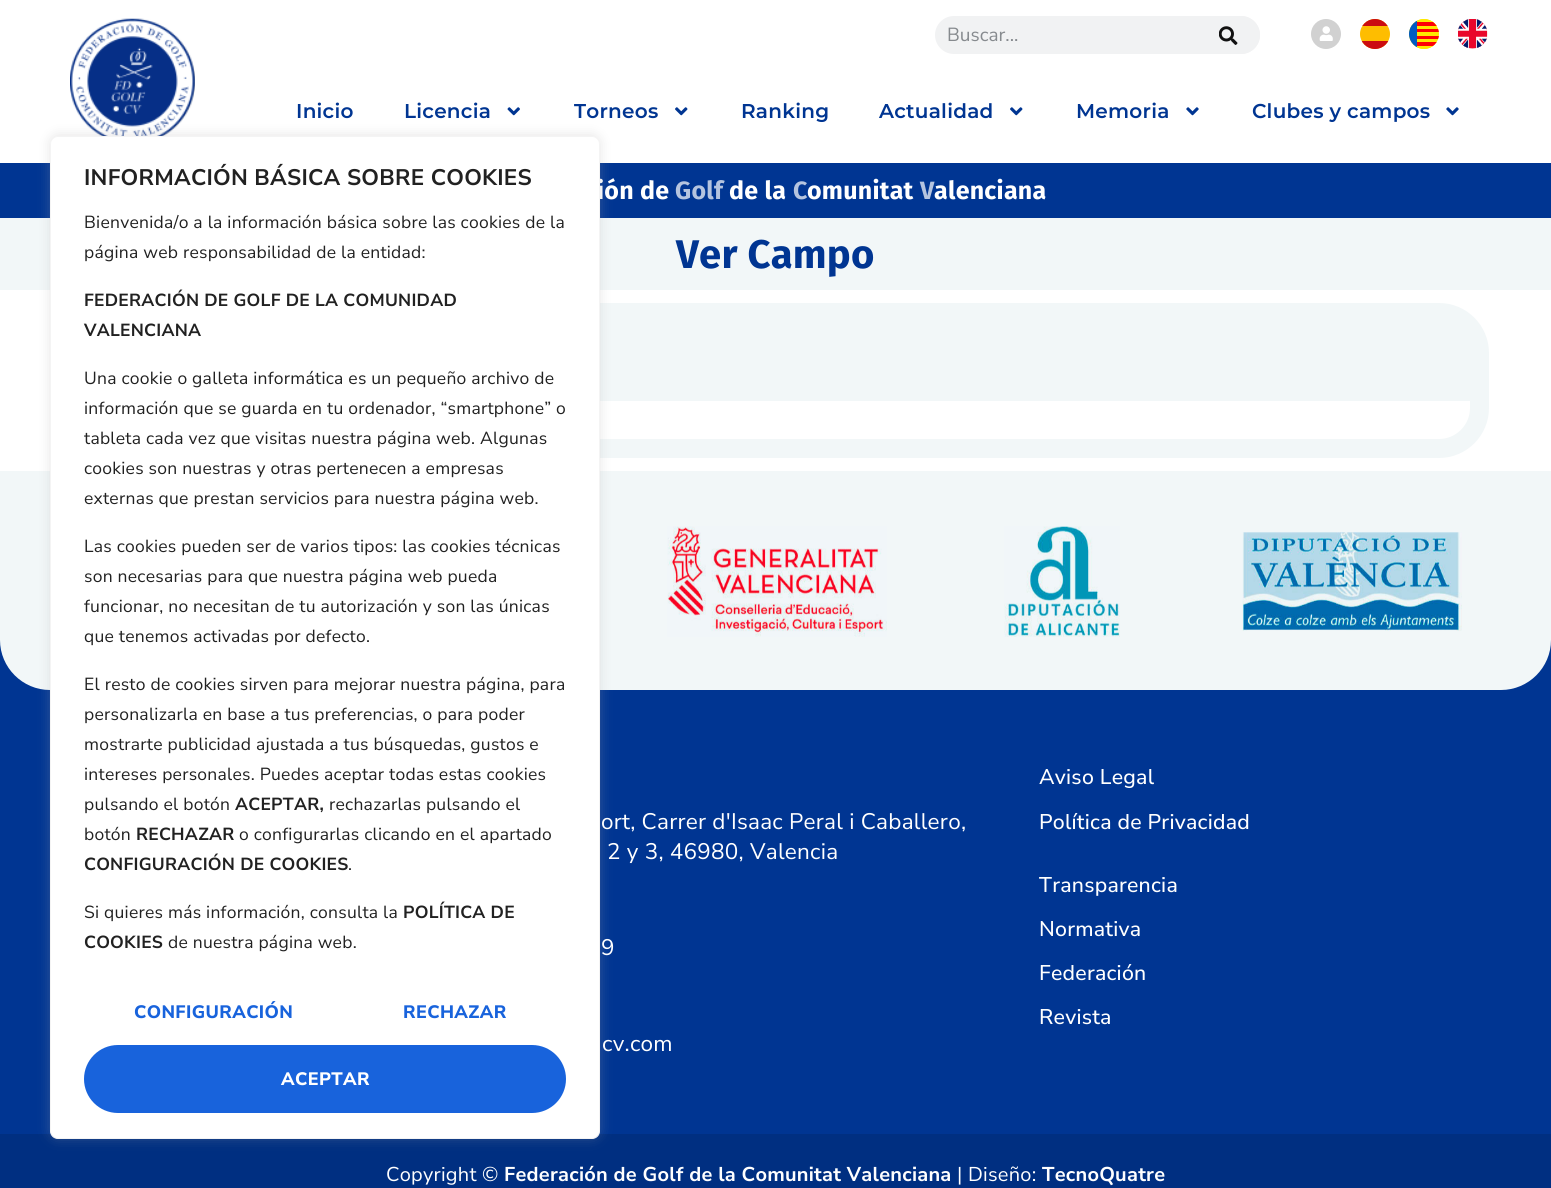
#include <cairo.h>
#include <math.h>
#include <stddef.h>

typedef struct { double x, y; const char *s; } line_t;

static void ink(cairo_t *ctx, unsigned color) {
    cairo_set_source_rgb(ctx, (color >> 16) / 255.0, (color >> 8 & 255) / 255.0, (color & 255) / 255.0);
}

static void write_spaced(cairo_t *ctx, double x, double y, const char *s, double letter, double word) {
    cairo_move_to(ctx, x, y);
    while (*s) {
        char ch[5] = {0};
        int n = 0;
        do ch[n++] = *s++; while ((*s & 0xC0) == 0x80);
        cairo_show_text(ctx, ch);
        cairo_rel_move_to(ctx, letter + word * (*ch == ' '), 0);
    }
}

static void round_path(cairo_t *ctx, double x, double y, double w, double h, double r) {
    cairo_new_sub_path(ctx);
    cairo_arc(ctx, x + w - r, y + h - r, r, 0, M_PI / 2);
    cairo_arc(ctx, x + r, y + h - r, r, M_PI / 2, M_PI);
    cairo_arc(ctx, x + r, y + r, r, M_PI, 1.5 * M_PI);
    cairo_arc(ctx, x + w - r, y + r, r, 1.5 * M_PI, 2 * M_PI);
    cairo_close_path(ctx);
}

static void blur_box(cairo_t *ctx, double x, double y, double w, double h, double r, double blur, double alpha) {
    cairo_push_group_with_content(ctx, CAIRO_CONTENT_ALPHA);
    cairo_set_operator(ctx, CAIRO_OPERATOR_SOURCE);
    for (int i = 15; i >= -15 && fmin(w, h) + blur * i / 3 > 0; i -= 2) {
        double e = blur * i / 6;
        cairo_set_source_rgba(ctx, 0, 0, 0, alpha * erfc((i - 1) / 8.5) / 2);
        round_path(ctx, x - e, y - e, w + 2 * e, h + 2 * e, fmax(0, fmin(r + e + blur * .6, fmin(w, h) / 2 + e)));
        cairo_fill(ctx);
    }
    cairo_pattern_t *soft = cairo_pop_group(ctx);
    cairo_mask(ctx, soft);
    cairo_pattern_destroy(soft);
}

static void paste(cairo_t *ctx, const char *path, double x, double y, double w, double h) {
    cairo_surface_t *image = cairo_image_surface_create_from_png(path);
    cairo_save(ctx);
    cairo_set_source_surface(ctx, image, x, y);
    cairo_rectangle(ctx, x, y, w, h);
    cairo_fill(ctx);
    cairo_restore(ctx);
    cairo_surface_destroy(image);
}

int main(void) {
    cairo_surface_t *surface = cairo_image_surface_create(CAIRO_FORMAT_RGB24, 1551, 1188);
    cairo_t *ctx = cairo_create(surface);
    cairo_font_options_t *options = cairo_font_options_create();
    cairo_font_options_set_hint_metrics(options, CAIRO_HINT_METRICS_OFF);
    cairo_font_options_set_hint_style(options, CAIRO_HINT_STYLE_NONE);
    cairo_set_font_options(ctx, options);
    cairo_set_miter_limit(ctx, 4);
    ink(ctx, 0xFFFFFF);
    cairo_paint(ctx);
    paste(ctx, "media/1.png", 70, 18, 125, 118);
    ink(ctx, 0xF1F2F3);
    round_path(ctx, 935, 16, 325, 38, 19);
    cairo_fill(ctx);
    cairo_select_font_face(ctx, "Nunito Sans", CAIRO_FONT_SLANT_NORMAL, CAIRO_FONT_WEIGHT_NORMAL);
    cairo_set_font_size(ctx, 19);
    ink(ctx, 0x868A8E);
    cairo_move_to(ctx, 947, 41);
    cairo_show_text(ctx, "Buscar...");
    ink(ctx, 0xF1F2F3);
    cairo_new_path(ctx);
    cairo_move_to(ctx, 1198, 16);
    cairo_line_to(ctx, 1241, 16);
    cairo_curve_to(ctx, 1251.5, 16, 1260, 24.5, 1260, 35);
    cairo_curve_to(ctx, 1260, 45.5, 1251.5, 54, 1241, 54);
    cairo_line_to(ctx, 1198, 54);
    cairo_close_path(ctx);
    cairo_fill(ctx);
    paste(ctx, "media/2.png", 1219, 26, 19, 19);
    ink(ctx, 0xD1D1D1);
    cairo_arc(ctx, 1326, 34, 15, 0, 2 * M_PI);
    cairo_fill(ctx);
    paste(ctx, "media/3.png", 1319, 26, 14, 15);
    ink(ctx, 0xFEBD00);
    cairo_arc(ctx, 1375, 34, 15, 0, 2 * M_PI);
    cairo_fill(ctx);
    cairo_save(ctx);
    round_path(ctx, 1360, 19, 30, 30, 15);
    cairo_clip(ctx);
    ink(ctx, 0xCB0C11);
    cairo_rectangle(ctx, 1360, 19, 30, 7);
    cairo_fill(ctx);
    cairo_rectangle(ctx, 1360, 41, 30, 8);
    cairo_fill(ctx);
    cairo_restore(ctx);
    paste(ctx, "media/4.png", 1409, 19, 30, 30);
    paste(ctx, "media/5.png", 1458, 19, 30, 30);
    cairo_select_font_face(ctx, "Montserrat SemiBold", CAIRO_FONT_SLANT_NORMAL, CAIRO_FONT_WEIGHT_NORMAL);
    cairo_set_font_size(ctx, 20);
    ink(ctx, 0x003592);
    write_spaced(ctx, 296, 118, "Inicio", 0.25, 0);
    write_spaced(ctx, 404, 118, "Licencia", 0.25, 0);
    paste(ctx, "media/6.png", 507, 107, 13, 9);
    write_spaced(ctx, 574, 118, "Torneos", 0.25, 0);
    paste(ctx, "media/7.png", 675, 107, 13, 9);
    write_spaced(ctx, 741, 118, "Ranking", 0.25, 0);
    write_spaced(ctx, 879, 118, "Actualidad", 0.25, 0);
    paste(ctx, "media/7.png", 1010, 107, 13, 9);
    write_spaced(ctx, 1076, 118, "Memoria", 0.25, 0);
    paste(ctx, "media/8.png", 1186, 107, 13, 9);
    write_spaced(ctx, 1252, 118, "Clubes y campos", 0.25, 0);
    paste(ctx, "media/8.png", 1446, 107, 13, 9);
    cairo_rectangle(ctx, 0, 163, 1551, 55);
    cairo_fill(ctx);
    cairo_select_font_face(ctx, "Fira Sans", CAIRO_FONT_SLANT_NORMAL, CAIRO_FONT_WEIGHT_BOLD);
    cairo_set_font_size(ctx, 25);
    ink(ctx, 0xFFFFFF);
    write_spaced(ctx, 597, 199, "ión de", 0.25, 0);
    ink(ctx, 0xB5C4DF);
    write_spaced(ctx, 675, 199, "Golf", 0.25, 0);
    ink(ctx, 0xFFFFFF);
    write_spaced(ctx, 729, 199, "de la", 0.25, 0);
    ink(ctx, 0xB5C4DF);
    write_spaced(ctx, 793, 199, "C", 0.25, 0);
    ink(ctx, 0xFFFFFF);
    write_spaced(ctx, 807, 199, "omunitat", 0.25, 0);
    ink(ctx, 0xB5C4DF);
    write_spaced(ctx, 920, 199, "V", 0.25, 0);
    ink(ctx, 0xFFFFFF);
    write_spaced(ctx, 934, 199, "alenciana", 0.25, 0);
    ink(ctx, 0xF2F7F8);
    cairo_rectangle(ctx, 0, 218, 1551, 72);
    cairo_fill(ctx);
    round_path(ctx, 64, 303, 1425, 155, 50);
    cairo_fill(ctx);
    ink(ctx, 0xFFFFFF);
    cairo_new_path(ctx);
    cairo_move_to(ctx, 83, 401);
    cairo_line_to(ctx, 1470, 401);
    cairo_line_to(ctx, 1470, 408);
    cairo_curve_to(ctx, 1470, 425, 1456, 439, 1439, 439);
    cairo_line_to(ctx, 114, 439);
    cairo_curve_to(ctx, 97, 439, 83, 425, 83, 408);
    cairo_close_path(ctx);
    cairo_fill(ctx);
    ink(ctx, 0x003592);
    cairo_rectangle(ctx, 0, 640, 1551, 494);
    cairo_fill(ctx);
    ink(ctx, 0xF2F7F8);
    cairo_new_path(ctx);
    cairo_move_to(ctx, 0, 471);
    cairo_line_to(ctx, 1551, 471);
    cairo_line_to(ctx, 1551, 640);
    cairo_curve_to(ctx, 1551, 667.5, 1528.5, 690, 1501, 690);
    cairo_line_to(ctx, 50, 690);
    cairo_curve_to(ctx, 22.5, 690, 0, 667.5, 0, 640);
    cairo_close_path(ctx);
    cairo_fill(ctx);
    ink(ctx, 0x002F81);
    cairo_rectangle(ctx, 0, 1134, 1551, 54);
    cairo_fill(ctx);
    ink(ctx, 0xACABAB);
    blur_box(ctx, 50, 135, 550, 1003, 8, 6, 0.3);
    ink(ctx, 0xFFFFFF);
    round_path(ctx, 50.5, 136.5, 549, 1002, 7.5);
    cairo_fill_preserve(ctx);
    ink(ctx, 0xF4F4F4);
    cairo_set_line_width(ctx, 1);
    cairo_stroke(ctx);
    cairo_select_font_face(ctx, "Nunito Sans", CAIRO_FONT_SLANT_NORMAL, CAIRO_FONT_WEIGHT_BOLD);
    cairo_set_font_size(ctx, 22.5);
    ink(ctx, 0x212121);
    write_spaced(ctx, 84, 185, "INFORMACIÓN BÁSICA SOBRE COOKIES", 0.25, 0);
    cairo_select_font_face(ctx, "Nunito Sans", CAIRO_FONT_SLANT_NORMAL, CAIRO_FONT_WEIGHT_NORMAL);
    cairo_set_font_size(ctx, 17.5);
    write_spaced(ctx, 84, 228, "Bienvenida/o a la información básica sobre las cookies de la", 0.25, 0);
    write_spaced(ctx, 84, 258, "página web responsabilidad de la entidad:", 0.25, 0);
    cairo_select_font_face(ctx, "Nunito Sans", CAIRO_FONT_SLANT_NORMAL, CAIRO_FONT_WEIGHT_BOLD);
    write_spaced(ctx, 84, 306, "FEDERACIÓN DE GOLF DE LA COMUNIDAD", 0.25, 0);
    write_spaced(ctx, 84, 336, "VALENCIANA", 0.25, 0);
    cairo_select_font_face(ctx, "Nunito Sans", CAIRO_FONT_SLANT_NORMAL, CAIRO_FONT_WEIGHT_NORMAL);
    {
        static const line_t items[] = {
            {84, 384, "Una cookie o galleta informática es un pequeño archivo de"},
            {84, 414, "información que se guarda en tu ordenador, “smartphone” o"},
            {84, 444, "tableta cada vez que visitas nuestra página web. Algunas"},
            {84, 474, "cookies son nuestras y otras pertenecen a empresas"},
            {84, 504, "externas que prestan servicios para nuestra página web."},
            {84, 552, "Las cookies pueden ser de varios tipos: las cookies técnicas"},
            {84, 582, "son necesarias para que nuestra página web pueda"},
            {84, 612, "funcionar, no necesitan de tu autorización y son las únicas"},
            {84, 642, "que tenemos activadas por defecto."},
            {84, 690, "El resto de cookies sirven para mejorar nuestra página, para"},
            {84, 720, "personalizarla en base a tus preferencias, o para poder"},
            {84, 750, "mostrarte publicidad ajustada a tus búsquedas, gustos e"},
            {84, 780, "intereses personales. Puedes aceptar todas estas cookies"},
            {84, 810, "pulsando el botón"},
        };
        for (size_t i = 0; i < sizeof items / sizeof *items; i++) {
            write_spaced(ctx, items[i].x, items[i].y, items[i].s, 0.25, 0);
        }
    }
    cairo_select_font_face(ctx, "Nunito Sans", CAIRO_FONT_SLANT_NORMAL, CAIRO_FONT_WEIGHT_BOLD);
    write_spaced(ctx, 235, 810, "ACEPTAR,", 0.25, 0);
    cairo_select_font_face(ctx, "Nunito Sans", CAIRO_FONT_SLANT_NORMAL, CAIRO_FONT_WEIGHT_NORMAL);
    write_spaced(ctx, 329, 810, "rechazarlas pulsando el", 0.25, 0);
    write_spaced(ctx, 84, 840, "botón", 0.25, 0);
    cairo_select_font_face(ctx, "Nunito Sans", CAIRO_FONT_SLANT_NORMAL, CAIRO_FONT_WEIGHT_BOLD);
    write_spaced(ctx, 136, 840, "RECHAZAR", 0.25, 0);
    cairo_select_font_face(ctx, "Nunito Sans", CAIRO_FONT_SLANT_NORMAL, CAIRO_FONT_WEIGHT_NORMAL);
    write_spaced(ctx, 239, 840, "o configurarlas clicando en el apartado", 0.25, 0);
    cairo_select_font_face(ctx, "Nunito Sans", CAIRO_FONT_SLANT_NORMAL, CAIRO_FONT_WEIGHT_BOLD);
    write_spaced(ctx, 84, 870, "CONFIGURACIÓN DE COOKIES", 0.25, 0);
    cairo_select_font_face(ctx, "Nunito Sans", CAIRO_FONT_SLANT_NORMAL, CAIRO_FONT_WEIGHT_NORMAL);
    write_spaced(ctx, 348, 870, ".", 0.25, 0);
    write_spaced(ctx, 84, 918, "Si quieres más información, consulta la", 0.25, 0);
    cairo_select_font_face(ctx, "Nunito Sans", CAIRO_FONT_SLANT_NORMAL, CAIRO_FONT_WEIGHT_BOLD);
    write_spaced(ctx, 403, 918, "POLÍTICA DE", 0.25, 0);
    write_spaced(ctx, 84, 948, "COOKIES", 0.25, 0);
    cairo_select_font_face(ctx, "Nunito Sans", CAIRO_FONT_SLANT_NORMAL, CAIRO_FONT_WEIGHT_NORMAL);
    write_spaced(ctx, 168, 948, "de nuestra página web.", 0.25, 0);
    cairo_select_font_face(ctx, "Nunito Sans ExtraBold", CAIRO_FONT_SLANT_NORMAL, CAIRO_FONT_WEIGHT_NORMAL);
    cairo_set_font_size(ctx, 18);
    ink(ctx, 0x1863DC);
    write_spaced(ctx, 134, 1018, "CONFIGURACIÓN", 0.4, 0);
    write_spaced(ctx, 403, 1018, "RECHAZAR", 0.4, 0);
    round_path(ctx, 84, 1045, 482, 68, 34);
    cairo_fill(ctx);
    ink(ctx, 0xFFFFFF);
    write_spaced(ctx, 281, 1085, "ACEPTAR", 0.4, 0);
    cairo_select_font_face(ctx, "Fira Sans", CAIRO_FONT_SLANT_NORMAL, CAIRO_FONT_WEIGHT_BOLD);
    cairo_set_font_size(ctx, 40);
    ink(ctx, 0x003592);
    write_spaced(ctx, 676, 268, "Ver Campo", 0.25, 0);
    paste(ctx, "media/9.png", 667, 526, 220, 111);
    paste(ctx, "media/10.png", 1004, 526, 116, 111);
    paste(ctx, "media/11.png", 1242, 532, 220, 99);
    cairo_select_font_face(ctx, "Nunito Sans", CAIRO_FONT_SLANT_NORMAL, CAIRO_FONT_WEIGHT_NORMAL);
    cairo_set_font_size(ctx, 22.5);
    ink(ctx, 0xFFFFFF);
    {
        static const line_t items[] = {
            {601, 829, "ort, Carrer d'Isaac Peral i Caballero,"},
            {607, 859, "2 y 3, 46980, Valencia"},
            {601, 955, "9"},
            {602, 1051, "cv.com"},
        };
        for (size_t i = 0; i < sizeof items / sizeof *items; i++) {
            write_spaced(ctx, items[i].x, items[i].y, items[i].s, 0.25, 0);
        }
    }
    cairo_select_font_face(ctx, "Nunito Sans Medium", CAIRO_FONT_SLANT_NORMAL, CAIRO_FONT_WEIGHT_NORMAL);
    cairo_set_font_size(ctx, 21.25);
    {
        static const line_t items[] = {
            {1039, 784, "Aviso Legal"},
            {1039, 829, "Política de Privacidad"},
            {1039, 892, "Transparencia"},
            {1039, 936, "Normativa"},
            {1039, 980, "Federación"},
            {1039, 1024, "Revista"},
        };
        for (size_t i = 0; i < sizeof items / sizeof *items; i++) {
            write_spaced(ctx, items[i].x, items[i].y, items[i].s, 0.25, 0);
        }
    }
    cairo_select_font_face(ctx, "Nunito Sans", CAIRO_FONT_SLANT_NORMAL, CAIRO_FONT_WEIGHT_NORMAL);
    cairo_set_font_size(ctx, 20);
    write_spaced(ctx, 386, 1181, "Copyright ©", 0.25, 0);
    cairo_select_font_face(ctx, "Nunito Sans", CAIRO_FONT_SLANT_NORMAL, CAIRO_FONT_WEIGHT_BOLD);
    write_spaced(ctx, 504, 1181, "Federación de Golf de la Comunitat Valenciana", 0.25, 0);
    cairo_select_font_face(ctx, "Nunito Sans", CAIRO_FONT_SLANT_NORMAL, CAIRO_FONT_WEIGHT_NORMAL);
    write_spaced(ctx, 957, 1181, "| Diseño:", 0.25, 0);
    cairo_select_font_face(ctx, "Nunito Sans", CAIRO_FONT_SLANT_NORMAL, CAIRO_FONT_WEIGHT_BOLD);
    write_spaced(ctx, 1042, 1181, "TecnoQuatre", 0.25, 0);
    cairo_surface_write_to_png(surface, "image.png");
    cairo_font_options_destroy(options);
    cairo_destroy(ctx);
    cairo_surface_destroy(surface);
    return 0;
}
